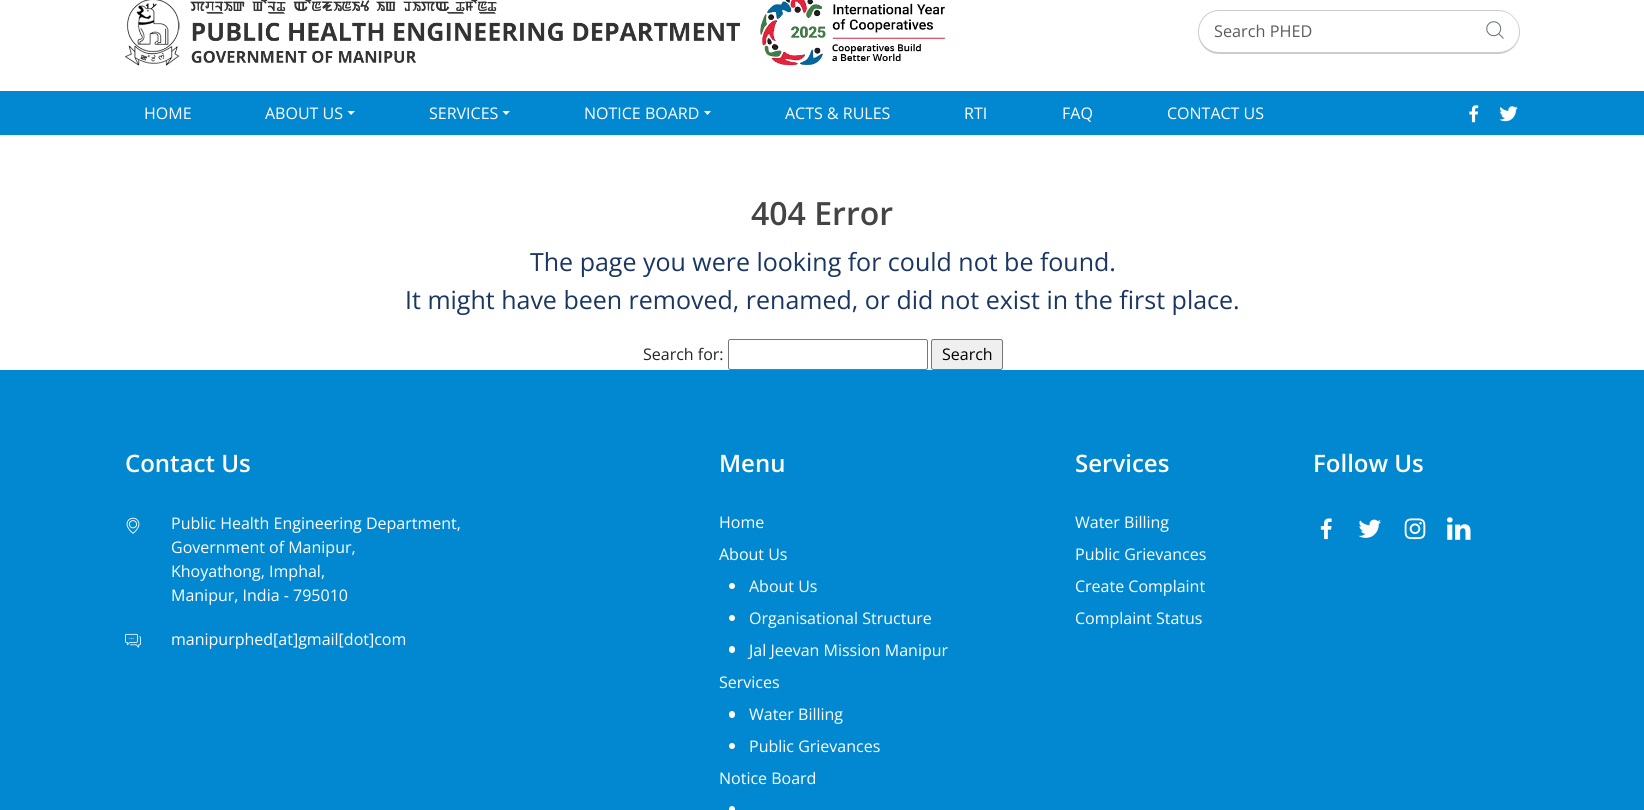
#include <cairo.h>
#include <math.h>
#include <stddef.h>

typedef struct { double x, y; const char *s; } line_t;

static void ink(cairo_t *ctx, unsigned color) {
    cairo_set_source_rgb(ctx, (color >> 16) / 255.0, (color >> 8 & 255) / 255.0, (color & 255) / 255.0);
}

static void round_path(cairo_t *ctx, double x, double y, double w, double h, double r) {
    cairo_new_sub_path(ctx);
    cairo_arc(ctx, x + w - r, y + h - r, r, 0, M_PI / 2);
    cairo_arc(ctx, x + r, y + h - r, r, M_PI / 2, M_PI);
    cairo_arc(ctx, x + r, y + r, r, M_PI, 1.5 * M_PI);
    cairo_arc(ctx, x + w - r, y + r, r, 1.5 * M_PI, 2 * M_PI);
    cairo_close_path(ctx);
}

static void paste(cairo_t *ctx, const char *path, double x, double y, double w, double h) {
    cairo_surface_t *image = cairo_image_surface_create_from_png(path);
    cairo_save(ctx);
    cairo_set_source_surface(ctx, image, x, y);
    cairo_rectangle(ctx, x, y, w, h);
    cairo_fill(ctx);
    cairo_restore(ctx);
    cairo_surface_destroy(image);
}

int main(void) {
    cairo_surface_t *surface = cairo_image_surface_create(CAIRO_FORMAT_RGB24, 1644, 810);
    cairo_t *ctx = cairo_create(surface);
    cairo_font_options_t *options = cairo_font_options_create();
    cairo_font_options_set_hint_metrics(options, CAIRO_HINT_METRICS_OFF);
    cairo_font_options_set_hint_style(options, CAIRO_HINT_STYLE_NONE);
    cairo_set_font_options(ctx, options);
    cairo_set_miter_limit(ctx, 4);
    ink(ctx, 0xFFFFFF);
    cairo_paint(ctx);
    paste(ctx, "media/1.png", 125, 0, 615, 66);
    paste(ctx, "media/2.png", 760, 0, 185, 66);
    ink(ctx, 0xCCCCCC);
    cairo_set_fill_rule(ctx, CAIRO_FILL_RULE_EVEN_ODD);
    cairo_new_path(ctx);
    cairo_move_to(ctx, 1219, 10);
    cairo_line_to(ctx, 1472, 10);
    cairo_line_to(ctx, 1472, 54);
    cairo_line_to(ctx, 1219, 54);
    cairo_curve_to(ctx, 1207, 54, 1198, 44, 1198, 32);
    cairo_curve_to(ctx, 1198, 20, 1207, 10, 1219, 10);
    cairo_close_path(ctx);
    cairo_move_to(ctx, 1219, 11);
    cairo_line_to(ctx, 1472, 11);
    cairo_line_to(ctx, 1472, 52);
    cairo_line_to(ctx, 1219, 52);
    cairo_curve_to(ctx, 1208, 52, 1199, 43, 1199, 32);
    cairo_curve_to(ctx, 1199, 20, 1208, 11, 1219, 11);
    cairo_close_path(ctx);
    cairo_fill(ctx);
    cairo_select_font_face(ctx, "Open Sans", CAIRO_FONT_SLANT_NORMAL, CAIRO_FONT_WEIGHT_NORMAL);
    cairo_set_font_size(ctx, 16.25);
    ink(ctx, 0x595C5F);
    cairo_move_to(ctx, 1214, 37);
    cairo_show_text(ctx, "Search PHED");
    ink(ctx, 0xCCCCCC);
    cairo_new_path(ctx);
    cairo_move_to(ctx, 1471, 10);
    cairo_line_to(ctx, 1498, 10);
    cairo_curve_to(ctx, 1510, 10, 1520, 20, 1520, 32);
    cairo_curve_to(ctx, 1520, 44, 1510, 54, 1498, 54);
    cairo_line_to(ctx, 1471, 54);
    cairo_close_path(ctx);
    cairo_move_to(ctx, 1471, 11);
    cairo_line_to(ctx, 1498, 11);
    cairo_curve_to(ctx, 1510, 11, 1519, 20, 1519, 32);
    cairo_curve_to(ctx, 1519, 43, 1510, 52, 1498, 52);
    cairo_line_to(ctx, 1471, 52);
    cairo_close_path(ctx);
    cairo_fill(ctx);
    paste(ctx, "media/3.png", 1486, 21, 18, 18);
    ink(ctx, 0x0288D1);
    cairo_rectangle(ctx, 0, 91, 1644, 44);
    cairo_fill(ctx);
    cairo_set_font_size(ctx, 16);
    ink(ctx, 0xFFFFFF);
    cairo_move_to(ctx, 144, 119);
    cairo_show_text(ctx, "HOME");
    cairo_move_to(ctx, 265, 119);
    cairo_show_text(ctx, "ABOUT US");
    cairo_set_fill_rule(ctx, CAIRO_FILL_RULE_WINDING);
    cairo_new_path(ctx);
    cairo_move_to(ctx, 347.5, 111);
    cairo_line_to(ctx, 355, 111);
    cairo_line_to(ctx, 351, 115);
    cairo_close_path(ctx);
    cairo_fill(ctx);
    cairo_move_to(ctx, 429, 119);
    cairo_show_text(ctx, "SERVICES");
    cairo_new_path(ctx);
    cairo_move_to(ctx, 502.5, 111);
    cairo_line_to(ctx, 510, 111);
    cairo_line_to(ctx, 506, 115);
    cairo_close_path(ctx);
    cairo_fill(ctx);
    cairo_move_to(ctx, 584, 119);
    cairo_show_text(ctx, "NOTICE BOARD");
    cairo_new_path(ctx);
    cairo_move_to(ctx, 704, 111);
    cairo_line_to(ctx, 711, 111);
    cairo_line_to(ctx, 707.5, 115);
    cairo_close_path(ctx);
    cairo_fill(ctx);
    {
        static const line_t items[] = {
            {785, 119, "ACTS & RULES"},
            {964, 119, "RTI"},
            {1062, 119, "FAQ"},
            {1167, 119, "CONTACT US"},
        };
        for (size_t i = 0; i < sizeof items / sizeof *items; i++) {
            cairo_move_to(ctx, items[i].x, items[i].y);
            cairo_show_text(ctx, items[i].s);
        }
    }
    paste(ctx, "media/4.png", 1469, 105, 10, 18);
    paste(ctx, "media/5.png", 1499, 106, 19, 16);
    cairo_select_font_face(ctx, "Open Sans SemiBold", CAIRO_FONT_SLANT_NORMAL, CAIRO_FONT_WEIGHT_NORMAL);
    cairo_set_font_size(ctx, 32);
    ink(ctx, 0x444444);
    cairo_move_to(ctx, 751, 225);
    cairo_show_text(ctx, "404 Error");
    cairo_select_font_face(ctx, "Open Sans", CAIRO_FONT_SLANT_NORMAL, CAIRO_FONT_WEIGHT_NORMAL);
    cairo_set_font_size(ctx, 25);
    ink(ctx, 0x1A3661);
    cairo_move_to(ctx, 530, 271);
    cairo_show_text(ctx, "The page you were looking for could not be found.");
    cairo_move_to(ctx, 405, 309);
    cairo_show_text(ctx, "It might have been removed, renamed, or did not exist in the first place.");
    cairo_set_font_size(ctx, 16);
    ink(ctx, 0x212529);
    cairo_move_to(ctx, 643, 360);
    cairo_show_text(ctx, "Search for:");
    round_path(ctx, 728.5, 339.5, 199, 30, 2);
    ink(ctx, 0x767676);
    cairo_set_line_width(ctx, 1);
    cairo_stroke(ctx);
    ink(ctx, 0xEFEFEF);
    round_path(ctx, 931.5, 339.5, 71, 30, 2);
    cairo_fill_preserve(ctx);
    ink(ctx, 0x767676);
    cairo_stroke(ctx);
    ink(ctx, 0x000000);
    cairo_move_to(ctx, 942, 360);
    cairo_show_text(ctx, "Search");
    ink(ctx, 0x0288D1);
    cairo_rectangle(ctx, 0, 370, 1644, 440);
    cairo_fill(ctx);
    cairo_select_font_face(ctx, "Open Sans SemiBold", CAIRO_FONT_SLANT_NORMAL, CAIRO_FONT_WEIGHT_NORMAL);
    cairo_set_font_size(ctx, 24);
    ink(ctx, 0xFFFFFF);
    cairo_move_to(ctx, 125, 472);
    cairo_show_text(ctx, "Contact Us");
    paste(ctx, "media/6.png", 126, 517, 14, 17);
    cairo_select_font_face(ctx, "Open Sans", CAIRO_FONT_SLANT_NORMAL, CAIRO_FONT_WEIGHT_NORMAL);
    cairo_set_font_size(ctx, 16);
    {
        static const line_t items[] = {
            {171, 529, "Public Health Engineering Department,"},
            {171, 553, "Government of Manipur,"},
            {171, 577, "Khoyathong, Imphal,"},
            {171, 601, "Manipur, India - 795010"},
        };
        for (size_t i = 0; i < sizeof items / sizeof *items; i++) {
            cairo_move_to(ctx, items[i].x, items[i].y);
            cairo_show_text(ctx, items[i].s);
        }
    }
    paste(ctx, "media/7.png", 125, 633, 16, 15);
    cairo_move_to(ctx, 171, 645);
    cairo_show_text(ctx, "manipurphed[at]gmail[dot]com");
    cairo_select_font_face(ctx, "Open Sans SemiBold", CAIRO_FONT_SLANT_NORMAL, CAIRO_FONT_WEIGHT_NORMAL);
    cairo_set_font_size(ctx, 24);
    cairo_move_to(ctx, 719, 472);
    cairo_show_text(ctx, "Menu");
    cairo_select_font_face(ctx, "Open Sans", CAIRO_FONT_SLANT_NORMAL, CAIRO_FONT_WEIGHT_NORMAL);
    cairo_set_font_size(ctx, 16);
    cairo_move_to(ctx, 719, 528);
    cairo_show_text(ctx, "Home");
    cairo_move_to(ctx, 719, 560);
    cairo_show_text(ctx, "About Us");
    cairo_new_path(ctx);
    cairo_arc(ctx, 732, 586, 3, 0, 2 * M_PI);
    cairo_fill(ctx);
    cairo_move_to(ctx, 749, 592);
    cairo_show_text(ctx, "About Us");
    cairo_new_path(ctx);
    cairo_arc(ctx, 732, 618, 3, 0, 2 * M_PI);
    cairo_fill(ctx);
    cairo_move_to(ctx, 749, 624);
    cairo_show_text(ctx, "Organisational Structure");
    round_path(ctx, 729, 646, 6, 7, 3);
    cairo_fill(ctx);
    cairo_move_to(ctx, 749, 656);
    cairo_show_text(ctx, "Jal Jeevan Mission Manipur");
    cairo_move_to(ctx, 719, 688);
    cairo_show_text(ctx, "Services");
    round_path(ctx, 729, 711, 6, 7, 3);
    cairo_fill(ctx);
    cairo_move_to(ctx, 749, 720);
    cairo_show_text(ctx, "Water Billing");
    cairo_new_path(ctx);
    cairo_arc(ctx, 732, 746, 3, 0, 2 * M_PI);
    cairo_fill(ctx);
    cairo_move_to(ctx, 749, 752);
    cairo_show_text(ctx, "Public Grievances");
    cairo_move_to(ctx, 719, 784);
    cairo_show_text(ctx, "Notice Board");
    round_path(ctx, 729, 806, 6, 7, 3);
    cairo_fill(ctx);
    cairo_select_font_face(ctx, "Open Sans SemiBold", CAIRO_FONT_SLANT_NORMAL, CAIRO_FONT_WEIGHT_NORMAL);
    cairo_set_font_size(ctx, 24);
    cairo_move_to(ctx, 1075, 472);
    cairo_show_text(ctx, "Services");
    cairo_select_font_face(ctx, "Open Sans", CAIRO_FONT_SLANT_NORMAL, CAIRO_FONT_WEIGHT_NORMAL);
    cairo_set_font_size(ctx, 16);
    {
        static const line_t items[] = {
            {1075, 528, "Water Billing"},
            {1075, 560, "Public Grievances"},
            {1075, 592, "Create Complaint"},
            {1075, 624, "Complaint Status"},
        };
        for (size_t i = 0; i < sizeof items / sizeof *items; i++) {
            cairo_move_to(ctx, items[i].x, items[i].y);
            cairo_show_text(ctx, items[i].s);
        }
    }
    cairo_select_font_face(ctx, "Open Sans SemiBold", CAIRO_FONT_SLANT_NORMAL, CAIRO_FONT_WEIGHT_NORMAL);
    cairo_set_font_size(ctx, 24);
    cairo_move_to(ctx, 1313, 472);
    cairo_show_text(ctx, "Follow Us");
    paste(ctx, "media/8.png", 1320, 518, 12, 22);
    paste(ctx, "media/9.png", 1358, 519, 23, 19);
    paste(ctx, "media/10.png", 1404, 518, 22, 22);
    paste(ctx, "media/11.png", 1447, 517, 24, 23);
    cairo_surface_write_to_png(surface, "image.png");
    cairo_font_options_destroy(options);
    cairo_destroy(ctx);
    cairo_surface_destroy(surface);
    return 0;
}
